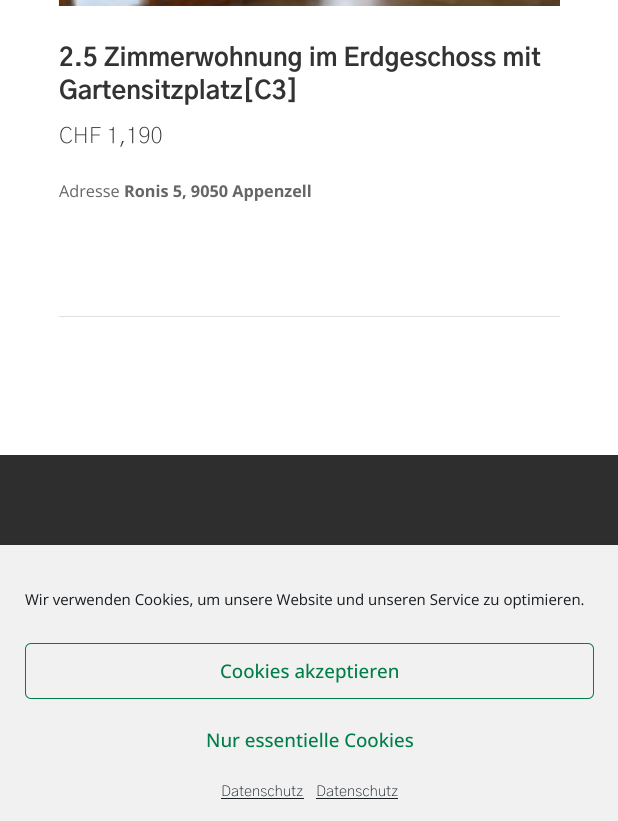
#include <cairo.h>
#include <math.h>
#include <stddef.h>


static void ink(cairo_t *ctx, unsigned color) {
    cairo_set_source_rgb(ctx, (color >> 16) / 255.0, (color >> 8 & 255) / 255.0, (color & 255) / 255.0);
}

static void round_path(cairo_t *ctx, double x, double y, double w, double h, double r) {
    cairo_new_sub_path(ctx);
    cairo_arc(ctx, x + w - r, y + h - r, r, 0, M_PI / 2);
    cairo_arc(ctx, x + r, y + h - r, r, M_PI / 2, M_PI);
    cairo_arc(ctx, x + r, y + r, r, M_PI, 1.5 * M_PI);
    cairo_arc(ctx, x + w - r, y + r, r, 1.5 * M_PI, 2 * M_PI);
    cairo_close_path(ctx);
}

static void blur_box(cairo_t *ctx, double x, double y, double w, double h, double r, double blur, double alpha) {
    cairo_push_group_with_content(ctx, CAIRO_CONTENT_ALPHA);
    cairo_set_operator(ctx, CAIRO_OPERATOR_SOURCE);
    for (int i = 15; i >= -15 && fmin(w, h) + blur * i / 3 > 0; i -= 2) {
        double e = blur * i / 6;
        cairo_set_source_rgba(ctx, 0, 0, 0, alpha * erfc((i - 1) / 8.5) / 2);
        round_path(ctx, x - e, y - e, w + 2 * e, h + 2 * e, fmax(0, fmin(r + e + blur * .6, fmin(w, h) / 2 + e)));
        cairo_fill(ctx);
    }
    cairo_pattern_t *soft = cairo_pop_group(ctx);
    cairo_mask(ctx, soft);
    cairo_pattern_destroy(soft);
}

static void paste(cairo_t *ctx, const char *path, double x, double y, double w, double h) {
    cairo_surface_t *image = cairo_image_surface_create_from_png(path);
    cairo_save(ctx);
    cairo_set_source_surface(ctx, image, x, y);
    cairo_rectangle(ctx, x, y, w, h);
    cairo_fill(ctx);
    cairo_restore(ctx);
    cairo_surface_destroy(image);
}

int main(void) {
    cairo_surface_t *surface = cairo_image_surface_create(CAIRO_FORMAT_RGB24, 618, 821);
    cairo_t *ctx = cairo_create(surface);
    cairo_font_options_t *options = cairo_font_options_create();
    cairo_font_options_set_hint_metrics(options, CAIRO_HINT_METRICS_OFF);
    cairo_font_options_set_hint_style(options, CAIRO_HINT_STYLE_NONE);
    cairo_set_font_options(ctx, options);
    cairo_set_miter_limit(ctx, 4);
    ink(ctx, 0xFFFFFF);
    cairo_paint(ctx);
    ink(ctx, 0xDFDFDF);
    cairo_rectangle(ctx, 59, 316, 501, 1);
    cairo_fill(ctx);
    paste(ctx, "media/1.png", 58, 0, 502, 6);
    cairo_select_font_face(ctx, "Gothic A1", CAIRO_FONT_SLANT_NORMAL, CAIRO_FONT_WEIGHT_BOLD);
    cairo_set_font_size(ctx, 25);
    ink(ctx, 0x333333);
    cairo_move_to(ctx, 59, 66);
    cairo_show_text(ctx, "2.5 Zimmerwohnung im Erdgeschoss mit");
    cairo_move_to(ctx, 59, 99);
    cairo_show_text(ctx, "Gartensitzplatz[C3]");
    cairo_select_font_face(ctx, "Gothic A1 Light", CAIRO_FONT_SLANT_NORMAL, CAIRO_FONT_WEIGHT_NORMAL);
    cairo_set_font_size(ctx, 22.5);
    cairo_move_to(ctx, 59, 143);
    cairo_show_text(ctx, "CHF 1,190");
    cairo_select_font_face(ctx, "Open Sans", CAIRO_FONT_SLANT_NORMAL, CAIRO_FONT_WEIGHT_NORMAL);
    cairo_set_font_size(ctx, 16.25);
    ink(ctx, 0x666666);
    cairo_move_to(ctx, 59, 197);
    cairo_show_text(ctx, "Adresse");
    cairo_select_font_face(ctx, "Open Sans", CAIRO_FONT_SLANT_NORMAL, CAIRO_FONT_WEIGHT_BOLD);
    cairo_move_to(ctx, 124, 197);
    cairo_show_text(ctx, "Ronis 5, 9050 Appenzell");
    ink(ctx, 0x2E2E2E);
    cairo_rectangle(ctx, 0, 455, 618, 90);
    cairo_fill(ctx);
    ink(ctx, 0x000000);
    blur_box(ctx, 0, 558, 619, 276, 0, 12.5, 0.19);
    ink(ctx, 0xF1F1F1);
    cairo_rectangle(ctx, 0, 545, 618, 276);
    cairo_fill(ctx);
    cairo_select_font_face(ctx, "Open Sans", CAIRO_FONT_SLANT_NORMAL, CAIRO_FONT_WEIGHT_NORMAL);
    cairo_set_font_size(ctx, 15);
    ink(ctx, 0x191E23);
    cairo_move_to(ctx, 25, 605);
    cairo_show_text(ctx, "Wir verwenden Cookies, um unsere Website und unseren Service zu optimieren.");
    round_path(ctx, 25.5, 643.5, 568, 55, 5.5);
    ink(ctx, 0x007D48);
    cairo_set_line_width(ctx, 1);
    cairo_stroke(ctx);
    cairo_select_font_face(ctx, "Open Sans Medium", CAIRO_FONT_SLANT_NORMAL, CAIRO_FONT_WEIGHT_NORMAL);
    cairo_set_font_size(ctx, 18.75);
    cairo_move_to(ctx, 220, 678);
    cairo_show_text(ctx, "Cookies akzeptieren");
    cairo_move_to(ctx, 206, 747);
    cairo_show_text(ctx, "Nur essentielle Cookies");
    cairo_select_font_face(ctx, "Gothic A1 Light", CAIRO_FONT_SLANT_NORMAL, CAIRO_FONT_WEIGHT_NORMAL);
    cairo_set_font_size(ctx, 15);
    ink(ctx, 0x191E23);
    cairo_move_to(ctx, 221, 796);
    cairo_show_text(ctx, "Datenschutz");
    cairo_rectangle(ctx, 221, 798, 83, 1);
    cairo_fill(ctx);
    cairo_move_to(ctx, 316, 796);
    cairo_show_text(ctx, "Datenschutz");
    cairo_rectangle(ctx, 316, 798, 82, 1);
    cairo_fill(ctx);
    cairo_surface_write_to_png(surface, "image.png");
    cairo_font_options_destroy(options);
    cairo_destroy(ctx);
    cairo_surface_destroy(surface);
    return 0;
}
